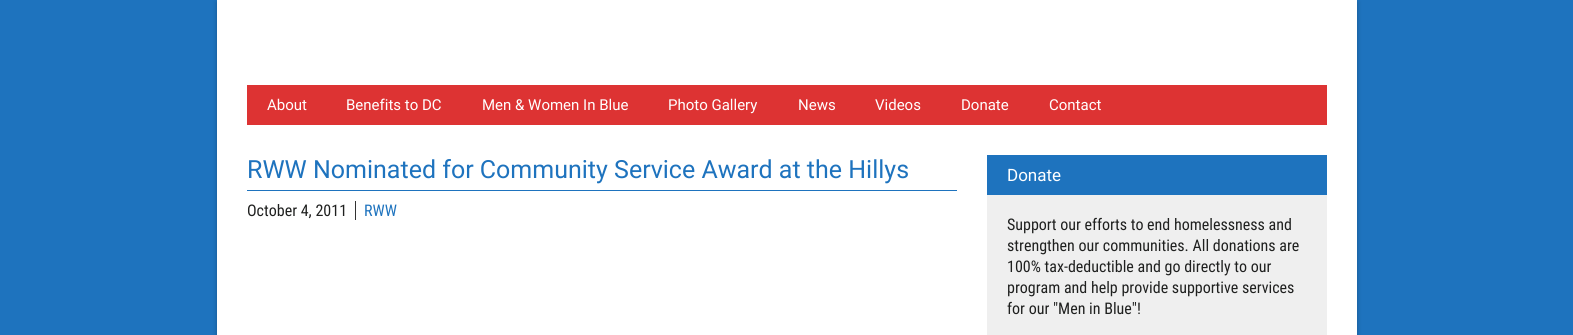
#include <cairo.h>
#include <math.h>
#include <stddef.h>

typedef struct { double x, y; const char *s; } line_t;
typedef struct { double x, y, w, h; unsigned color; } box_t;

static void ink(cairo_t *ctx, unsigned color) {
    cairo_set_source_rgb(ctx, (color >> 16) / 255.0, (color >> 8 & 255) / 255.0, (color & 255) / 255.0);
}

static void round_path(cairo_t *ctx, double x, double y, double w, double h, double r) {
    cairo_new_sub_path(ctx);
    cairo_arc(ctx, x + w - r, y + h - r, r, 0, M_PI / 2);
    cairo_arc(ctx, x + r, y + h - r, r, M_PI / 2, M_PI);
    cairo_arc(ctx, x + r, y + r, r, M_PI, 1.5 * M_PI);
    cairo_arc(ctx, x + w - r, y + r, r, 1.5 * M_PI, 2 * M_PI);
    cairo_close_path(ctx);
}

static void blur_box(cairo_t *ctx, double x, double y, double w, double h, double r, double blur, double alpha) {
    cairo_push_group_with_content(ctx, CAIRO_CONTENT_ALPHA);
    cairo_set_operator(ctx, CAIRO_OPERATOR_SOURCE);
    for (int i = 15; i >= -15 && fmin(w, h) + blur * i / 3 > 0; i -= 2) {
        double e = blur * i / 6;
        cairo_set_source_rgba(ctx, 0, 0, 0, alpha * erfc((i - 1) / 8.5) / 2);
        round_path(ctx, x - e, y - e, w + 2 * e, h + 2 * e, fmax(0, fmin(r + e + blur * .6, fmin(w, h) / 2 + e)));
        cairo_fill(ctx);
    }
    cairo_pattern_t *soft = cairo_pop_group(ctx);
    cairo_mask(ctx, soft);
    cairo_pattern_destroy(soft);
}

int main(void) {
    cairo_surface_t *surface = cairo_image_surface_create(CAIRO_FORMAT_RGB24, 1573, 335);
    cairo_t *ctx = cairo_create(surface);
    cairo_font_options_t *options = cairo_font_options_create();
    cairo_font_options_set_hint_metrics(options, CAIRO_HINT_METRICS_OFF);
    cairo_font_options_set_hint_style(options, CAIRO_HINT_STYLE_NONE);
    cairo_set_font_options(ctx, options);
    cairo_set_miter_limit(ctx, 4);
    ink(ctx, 0x1E73BE);
    cairo_paint(ctx);
    ink(ctx, 0x000000);
    blur_box(ctx, 217, 2, 1140, 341, 0, 2.5, 0.26);
    ink(ctx, 0xFFFFFF);
    cairo_rectangle(ctx, 217, 0, 1140, 335);
    cairo_fill(ctx);
    ink(ctx, 0xDD3333);
    cairo_rectangle(ctx, 247, 85, 1080, 40);
    cairo_fill(ctx);
    cairo_select_font_face(ctx, "Roboto", CAIRO_FONT_SLANT_NORMAL, CAIRO_FONT_WEIGHT_NORMAL);
    cairo_set_font_size(ctx, 15);
    ink(ctx, 0xFFFFFF);
    {
        static const line_t items[] = {
            {267, 110, "About"},
            {346, 110, "Benefits to DC"},
            {482, 110, "Men & Women In Blue"},
            {668, 110, "Photo Gallery"},
            {798, 110, "News"},
            {875, 110, "Videos"},
            {961, 110, "Donate"},
            {1049, 110, "Contact"},
        };
        for (size_t i = 0; i < sizeof items / sizeof *items; i++) {
            cairo_move_to(ctx, items[i].x, items[i].y);
            cairo_show_text(ctx, items[i].s);
        }
    }
    ink(ctx, 0x1E73BE);
    cairo_rectangle(ctx, 247, 190, 710, 1);
    cairo_fill(ctx);
    cairo_set_font_size(ctx, 25);
    cairo_move_to(ctx, 247, 178);
    cairo_show_text(ctx, "RWW Nominated for Community Service Award at the Hillys");
    cairo_select_font_face(ctx, "Roboto Condensed", CAIRO_FONT_SLANT_NORMAL, CAIRO_FONT_WEIGHT_NORMAL);
    cairo_set_font_size(ctx, 16);
    ink(ctx, 0x1F201F);
    cairo_move_to(ctx, 247, 216);
    cairo_show_text(ctx, "October 4, 2011");
    ink(ctx, 0x1E73BE);
    cairo_move_to(ctx, 364, 216);
    cairo_show_text(ctx, "RWW");
    {
        static const box_t items[] = {
            {355, 201, 1, 19, 0x333333},
            {987, 195, 340, 140, 0xEFEFEF},
            {987, 155, 340, 40, 0x1E73BE},
        };
        for (size_t i = 0; i < sizeof items / sizeof *items; i++) {
            ink(ctx, items[i].color);
            cairo_rectangle(ctx, items[i].x, items[i].y, items[i].w, items[i].h);
            cairo_fill(ctx);
        }
    }
    cairo_select_font_face(ctx, "Roboto", CAIRO_FONT_SLANT_NORMAL, CAIRO_FONT_WEIGHT_NORMAL);
    cairo_set_font_size(ctx, 17);
    ink(ctx, 0xFFFFFF);
    cairo_move_to(ctx, 1007, 181);
    cairo_show_text(ctx, "Donate");
    cairo_select_font_face(ctx, "Roboto Condensed", CAIRO_FONT_SLANT_NORMAL, CAIRO_FONT_WEIGHT_NORMAL);
    cairo_set_font_size(ctx, 16);
    ink(ctx, 0x1F201F);
    {
        static const line_t items[] = {
            {1007, 230, "Support our efforts to end homelessness and"},
            {1007, 251, "strengthen our communities. All donations are"},
            {1007, 272, "100% tax-deductible and go directly to our"},
            {1007, 293, "program and help provide supportive services"},
            {1007, 314, "for our \"Men in Blue\"!"},
        };
        for (size_t i = 0; i < sizeof items / sizeof *items; i++) {
            cairo_move_to(ctx, items[i].x, items[i].y);
            cairo_show_text(ctx, items[i].s);
        }
    }
    cairo_surface_write_to_png(surface, "image.png");
    cairo_font_options_destroy(options);
    cairo_destroy(ctx);
    cairo_surface_destroy(surface);
    return 0;
}
